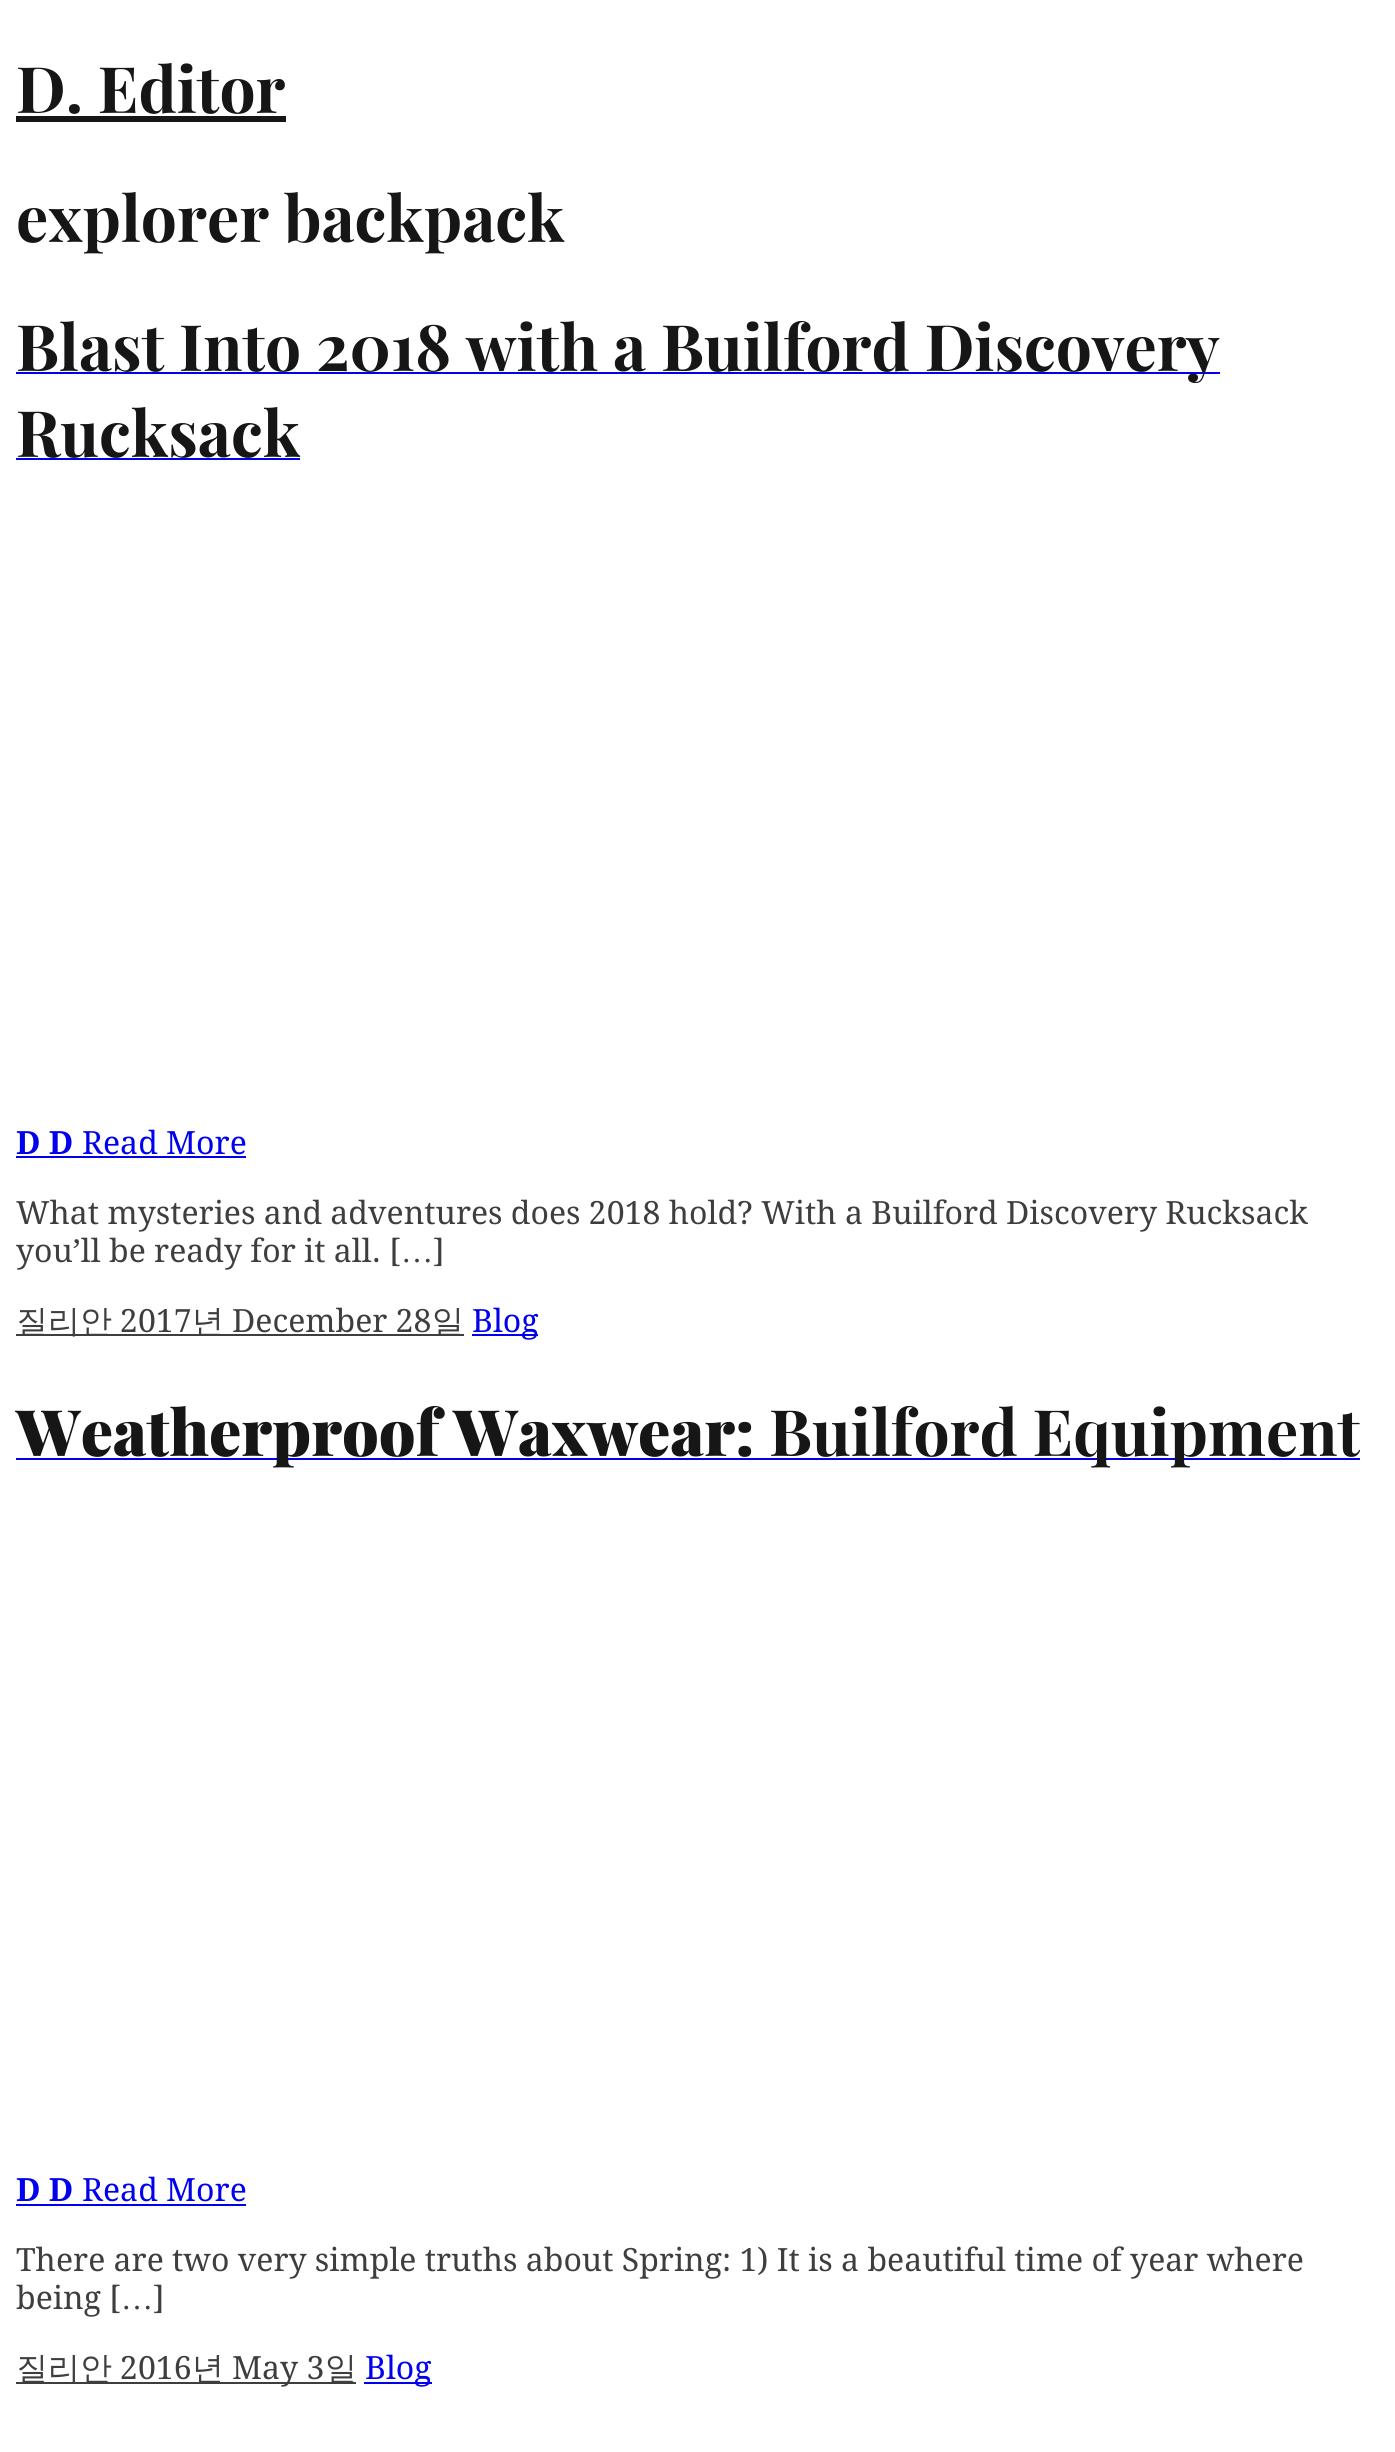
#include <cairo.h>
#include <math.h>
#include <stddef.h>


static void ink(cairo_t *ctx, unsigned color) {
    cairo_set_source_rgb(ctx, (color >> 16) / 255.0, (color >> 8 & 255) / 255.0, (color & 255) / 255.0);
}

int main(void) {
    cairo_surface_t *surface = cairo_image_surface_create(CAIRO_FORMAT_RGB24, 1395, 2452);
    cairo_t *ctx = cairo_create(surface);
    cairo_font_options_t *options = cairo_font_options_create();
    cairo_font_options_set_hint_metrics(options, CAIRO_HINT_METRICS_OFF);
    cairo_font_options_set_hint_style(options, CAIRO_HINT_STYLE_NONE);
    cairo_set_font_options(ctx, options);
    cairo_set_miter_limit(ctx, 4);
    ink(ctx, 0xFFFFFF);
    cairo_paint(ctx);
    cairo_select_font_face(ctx, "Playfair Display", CAIRO_FONT_SLANT_NORMAL, CAIRO_FONT_WEIGHT_BOLD);
    cairo_set_font_size(ctx, 64);
    ink(ctx, 0x171617);
    cairo_move_to(ctx, 16, 113);
    cairo_show_text(ctx, "D. Editor");
    cairo_rectangle(ctx, 16, 116, 270, 6);
    cairo_fill(ctx);
    cairo_move_to(ctx, 16, 242);
    cairo_show_text(ctx, "explorer backpack");
    ink(ctx, 0x0000EE);
    cairo_rectangle(ctx, 16, 372, 1204, 2);
    cairo_fill(ctx);
    ink(ctx, 0x171617);
    cairo_move_to(ctx, 16, 371);
    cairo_show_text(ctx, "Blast Into 2018 with a Builford Discovery");
    cairo_move_to(ctx, 16, 457);
    cairo_show_text(ctx, "Rucksack");
    ink(ctx, 0x0000EE);
    cairo_rectangle(ctx, 16, 458, 284, 2);
    cairo_fill(ctx);
    cairo_select_font_face(ctx, "Droid Serif", CAIRO_FONT_SLANT_NORMAL, CAIRO_FONT_WEIGHT_BOLD);
    cairo_set_font_size(ctx, 32);
    cairo_move_to(ctx, 16, 1154);
    cairo_show_text(ctx, "D D");
    cairo_rectangle(ctx, 16, 1156, 230, 2);
    cairo_fill(ctx);
    cairo_select_font_face(ctx, "Droid Serif", CAIRO_FONT_SLANT_NORMAL, CAIRO_FONT_WEIGHT_NORMAL);
    cairo_move_to(ctx, 82, 1154);
    cairo_show_text(ctx, "Read More");
    ink(ctx, 0x3D3E40);
    cairo_move_to(ctx, 16, 1224);
    cairo_show_text(ctx, "What mysteries and adventures does 2018 hold? With a Builford Discovery Rucksack");
    cairo_move_to(ctx, 16, 1262);
    cairo_show_text(ctx, "you’ll be ready for it all. [");
    cairo_select_font_face(ctx, "Liberation Serif", CAIRO_FONT_SLANT_NORMAL, CAIRO_FONT_WEIGHT_NORMAL);
    cairo_move_to(ctx, 401, 1262);
    cairo_show_text(ctx, "…");
    cairo_select_font_face(ctx, "Droid Serif", CAIRO_FONT_SLANT_NORMAL, CAIRO_FONT_WEIGHT_NORMAL);
    cairo_move_to(ctx, 433, 1262);
    cairo_show_text(ctx, "]");
    cairo_rectangle(ctx, 16, 1334, 448, 2);
    cairo_fill(ctx);
    cairo_select_font_face(ctx, "WenQuanYi Zen Hei Medium", CAIRO_FONT_SLANT_NORMAL, CAIRO_FONT_WEIGHT_NORMAL);
    cairo_move_to(ctx, 16, 1332);
    cairo_show_text(ctx, "질리안");
    cairo_select_font_face(ctx, "Droid Serif", CAIRO_FONT_SLANT_NORMAL, CAIRO_FONT_WEIGHT_NORMAL);
    cairo_move_to(ctx, 120, 1332);
    cairo_show_text(ctx, "2017");
    cairo_select_font_face(ctx, "WenQuanYi Zen Hei Medium", CAIRO_FONT_SLANT_NORMAL, CAIRO_FONT_WEIGHT_NORMAL);
    cairo_move_to(ctx, 192, 1332);
    cairo_show_text(ctx, "년");
    cairo_select_font_face(ctx, "Droid Serif", CAIRO_FONT_SLANT_NORMAL, CAIRO_FONT_WEIGHT_NORMAL);
    cairo_move_to(ctx, 232, 1332);
    cairo_show_text(ctx, "December 28");
    cairo_select_font_face(ctx, "WenQuanYi Zen Hei Medium", CAIRO_FONT_SLANT_NORMAL, CAIRO_FONT_WEIGHT_NORMAL);
    cairo_move_to(ctx, 432, 1332);
    cairo_show_text(ctx, "일");
    ink(ctx, 0x0000EE);
    cairo_rectangle(ctx, 472, 1334, 66, 2);
    cairo_fill(ctx);
    cairo_select_font_face(ctx, "Droid Serif", CAIRO_FONT_SLANT_NORMAL, CAIRO_FONT_WEIGHT_NORMAL);
    cairo_move_to(ctx, 472, 1332);
    cairo_show_text(ctx, "Blog");
    cairo_rectangle(ctx, 16, 1458, 1344, 2);
    cairo_fill(ctx);
    cairo_select_font_face(ctx, "Playfair Display Black", CAIRO_FONT_SLANT_NORMAL, CAIRO_FONT_WEIGHT_NORMAL);
    cairo_set_font_size(ctx, 64);
    ink(ctx, 0x171617);
    cairo_move_to(ctx, 16, 1456);
    cairo_show_text(ctx, "Weatherproof Waxwear:");
    cairo_select_font_face(ctx, "Playfair Display", CAIRO_FONT_SLANT_NORMAL, CAIRO_FONT_WEIGHT_BOLD);
    cairo_move_to(ctx, 769, 1456);
    cairo_show_text(ctx, "Builford Equipment");
    cairo_select_font_face(ctx, "Droid Serif", CAIRO_FONT_SLANT_NORMAL, CAIRO_FONT_WEIGHT_BOLD);
    cairo_set_font_size(ctx, 32);
    ink(ctx, 0x0000EE);
    cairo_move_to(ctx, 16, 2201);
    cairo_show_text(ctx, "D D");
    cairo_rectangle(ctx, 16, 2204, 230, 2);
    cairo_fill(ctx);
    cairo_select_font_face(ctx, "Droid Serif", CAIRO_FONT_SLANT_NORMAL, CAIRO_FONT_WEIGHT_NORMAL);
    cairo_move_to(ctx, 82, 2201);
    cairo_show_text(ctx, "Read More");
    ink(ctx, 0x3D3E40);
    cairo_move_to(ctx, 16, 2271);
    cairo_show_text(ctx, "There are two very simple truths about Spring: 1) It is a beautiful time of year where");
    cairo_move_to(ctx, 16, 2309);
    cairo_show_text(ctx, "being [");
    cairo_select_font_face(ctx, "Liberation Serif", CAIRO_FONT_SLANT_NORMAL, CAIRO_FONT_WEIGHT_NORMAL);
    cairo_move_to(ctx, 121, 2309);
    cairo_show_text(ctx, "…");
    cairo_select_font_face(ctx, "Droid Serif", CAIRO_FONT_SLANT_NORMAL, CAIRO_FONT_WEIGHT_NORMAL);
    cairo_move_to(ctx, 153, 2309);
    cairo_show_text(ctx, "]");
    cairo_rectangle(ctx, 16, 2382, 340, 2);
    cairo_fill(ctx);
    cairo_select_font_face(ctx, "WenQuanYi Zen Hei Medium", CAIRO_FONT_SLANT_NORMAL, CAIRO_FONT_WEIGHT_NORMAL);
    cairo_move_to(ctx, 16, 2379);
    cairo_show_text(ctx, "질리안");
    cairo_select_font_face(ctx, "Droid Serif", CAIRO_FONT_SLANT_NORMAL, CAIRO_FONT_WEIGHT_NORMAL);
    cairo_move_to(ctx, 120, 2379);
    cairo_show_text(ctx, "2016");
    cairo_select_font_face(ctx, "WenQuanYi Zen Hei Medium", CAIRO_FONT_SLANT_NORMAL, CAIRO_FONT_WEIGHT_NORMAL);
    cairo_move_to(ctx, 192, 2379);
    cairo_show_text(ctx, "년");
    cairo_select_font_face(ctx, "Droid Serif", CAIRO_FONT_SLANT_NORMAL, CAIRO_FONT_WEIGHT_NORMAL);
    cairo_move_to(ctx, 232, 2379);
    cairo_show_text(ctx, "May 3");
    cairo_select_font_face(ctx, "WenQuanYi Zen Hei Medium", CAIRO_FONT_SLANT_NORMAL, CAIRO_FONT_WEIGHT_NORMAL);
    cairo_move_to(ctx, 325, 2379);
    cairo_show_text(ctx, "일");
    ink(ctx, 0x0000EE);
    cairo_rectangle(ctx, 364, 2382, 68, 2);
    cairo_fill(ctx);
    cairo_select_font_face(ctx, "Droid Serif", CAIRO_FONT_SLANT_NORMAL, CAIRO_FONT_WEIGHT_NORMAL);
    cairo_move_to(ctx, 365, 2379);
    cairo_show_text(ctx, "Blog");
    cairo_surface_write_to_png(surface, "image.png");
    cairo_font_options_destroy(options);
    cairo_destroy(ctx);
    cairo_surface_destroy(surface);
    return 0;
}
